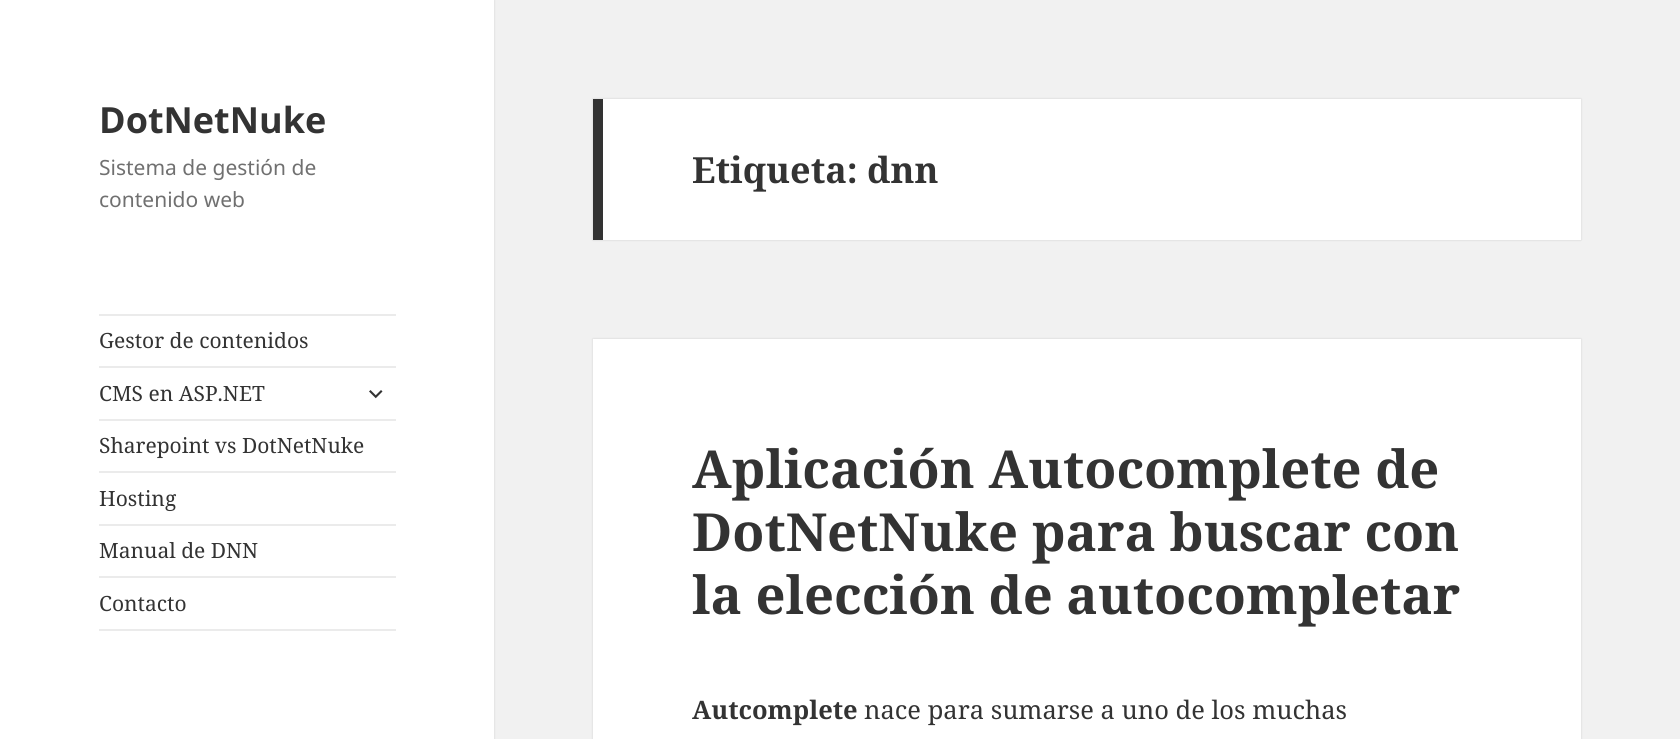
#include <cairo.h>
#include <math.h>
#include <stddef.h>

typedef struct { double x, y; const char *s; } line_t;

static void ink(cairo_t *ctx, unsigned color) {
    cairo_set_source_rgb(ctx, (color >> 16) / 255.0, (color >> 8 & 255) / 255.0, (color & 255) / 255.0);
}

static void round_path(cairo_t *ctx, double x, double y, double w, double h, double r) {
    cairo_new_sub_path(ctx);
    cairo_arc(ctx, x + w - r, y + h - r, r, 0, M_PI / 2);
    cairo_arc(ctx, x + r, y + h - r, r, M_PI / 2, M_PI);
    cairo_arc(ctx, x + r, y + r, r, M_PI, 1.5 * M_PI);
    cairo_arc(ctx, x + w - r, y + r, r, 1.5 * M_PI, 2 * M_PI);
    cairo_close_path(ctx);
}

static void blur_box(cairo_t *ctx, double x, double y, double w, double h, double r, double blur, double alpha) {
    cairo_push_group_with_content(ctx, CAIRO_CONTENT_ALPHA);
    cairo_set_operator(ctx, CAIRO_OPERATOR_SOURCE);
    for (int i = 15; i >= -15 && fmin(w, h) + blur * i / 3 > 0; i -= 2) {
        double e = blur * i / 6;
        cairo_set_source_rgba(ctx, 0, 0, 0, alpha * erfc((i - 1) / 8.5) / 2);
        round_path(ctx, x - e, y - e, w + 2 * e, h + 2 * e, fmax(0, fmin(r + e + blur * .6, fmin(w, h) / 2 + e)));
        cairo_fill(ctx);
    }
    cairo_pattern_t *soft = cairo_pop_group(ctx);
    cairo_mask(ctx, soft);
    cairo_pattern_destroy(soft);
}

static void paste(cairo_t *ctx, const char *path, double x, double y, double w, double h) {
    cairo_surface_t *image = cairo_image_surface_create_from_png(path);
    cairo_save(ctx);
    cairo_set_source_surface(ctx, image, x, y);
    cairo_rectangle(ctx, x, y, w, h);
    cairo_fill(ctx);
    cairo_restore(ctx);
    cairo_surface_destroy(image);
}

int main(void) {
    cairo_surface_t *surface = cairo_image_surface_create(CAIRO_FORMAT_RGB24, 1680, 739);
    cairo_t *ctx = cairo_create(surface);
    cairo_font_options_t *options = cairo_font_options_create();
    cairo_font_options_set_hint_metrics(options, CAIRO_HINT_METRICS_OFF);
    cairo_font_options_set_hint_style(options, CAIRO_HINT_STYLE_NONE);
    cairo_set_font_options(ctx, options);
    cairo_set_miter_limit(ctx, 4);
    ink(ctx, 0xF1F1F1);
    cairo_paint(ctx);
    ink(ctx, 0x000000);
    blur_box(ctx, 0, 0, 494, 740, 0, 1, 0.15);
    ink(ctx, 0xFFFFFF);
    cairo_rectangle(ctx, 0, 0, 494, 739);
    cairo_fill(ctx);
    cairo_select_font_face(ctx, "Noto Sans", CAIRO_FONT_SLANT_NORMAL, CAIRO_FONT_WEIGHT_BOLD);
    cairo_set_font_size(ctx, 36);
    ink(ctx, 0x333333);
    cairo_move_to(ctx, 99, 133);
    cairo_show_text(ctx, "DotNetNuke");
    cairo_select_font_face(ctx, "Noto Sans", CAIRO_FONT_SLANT_NORMAL, CAIRO_FONT_WEIGHT_NORMAL);
    cairo_set_font_size(ctx, 21);
    ink(ctx, 0x707070);
    cairo_move_to(ctx, 99, 175);
    cairo_show_text(ctx, "Sistema de gestión de");
    cairo_move_to(ctx, 99, 207);
    cairo_show_text(ctx, "contenido web");
    ink(ctx, 0xEBEBEB);
    cairo_rectangle(ctx, 99, 314, 297, 2);
    cairo_fill(ctx);
    cairo_rectangle(ctx, 99, 629, 297, 2);
    cairo_fill(ctx);
    cairo_select_font_face(ctx, "Noto Serif", CAIRO_FONT_SLANT_NORMAL, CAIRO_FONT_WEIGHT_NORMAL);
    ink(ctx, 0x333333);
    cairo_move_to(ctx, 99, 348);
    cairo_show_text(ctx, "Gestor de contenidos");
    ink(ctx, 0xEBEBEB);
    cairo_rectangle(ctx, 99, 366, 297, 2);
    cairo_fill(ctx);
    ink(ctx, 0x333333);
    cairo_move_to(ctx, 99, 401);
    cairo_show_text(ctx, "CMS en ASP.NET");
    paste(ctx, "media/1.png", 369, 390, 14, 9);
    ink(ctx, 0xEBEBEB);
    cairo_rectangle(ctx, 99, 419, 297, 2);
    cairo_fill(ctx);
    ink(ctx, 0x333333);
    cairo_move_to(ctx, 99, 453);
    cairo_show_text(ctx, "Sharepoint vs DotNetNuke");
    ink(ctx, 0xEBEBEB);
    cairo_rectangle(ctx, 99, 471, 297, 2);
    cairo_fill(ctx);
    ink(ctx, 0x333333);
    cairo_move_to(ctx, 99, 506);
    cairo_show_text(ctx, "Hosting");
    ink(ctx, 0xEBEBEB);
    cairo_rectangle(ctx, 99, 524, 297, 2);
    cairo_fill(ctx);
    ink(ctx, 0x333333);
    cairo_move_to(ctx, 99, 558);
    cairo_show_text(ctx, "Manual de DNN");
    ink(ctx, 0xEBEBEB);
    cairo_rectangle(ctx, 99, 576, 297, 2);
    cairo_fill(ctx);
    ink(ctx, 0x333333);
    cairo_move_to(ctx, 99, 611);
    cairo_show_text(ctx, "Contacto");
    ink(ctx, 0x000000);
    blur_box(ctx, 593, 99, 988, 141, 0, 1, 0.15);
    ink(ctx, 0xFFFFFF);
    cairo_rectangle(ctx, 603, 99, 978, 141);
    cairo_fill(ctx);
    ink(ctx, 0x333333);
    cairo_rectangle(ctx, 593, 99, 10, 141);
    cairo_fill(ctx);
    cairo_select_font_face(ctx, "Noto Serif", CAIRO_FONT_SLANT_NORMAL, CAIRO_FONT_WEIGHT_BOLD);
    cairo_set_font_size(ctx, 36);
    cairo_move_to(ctx, 692, 183);
    cairo_show_text(ctx, "Etiqueta: dnn");
    ink(ctx, 0x000000);
    blur_box(ctx, 593, 339, 988, 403, 0, 1, 0.15);
    ink(ctx, 0xFFFFFF);
    cairo_rectangle(ctx, 593, 339, 988, 400);
    cairo_fill(ctx);
    cairo_set_font_size(ctx, 52.5);
    ink(ctx, 0x333333);
    {
        static const line_t items[] = {
            {692, 488, "Aplicación Autocomplete de"},
            {692, 551, "DotNetNuke para buscar con"},
            {692, 614, "la elección de autocompletar"},
        };
        for (size_t i = 0; i < sizeof items / sizeof *items; i++) {
            cairo_move_to(ctx, items[i].x, items[i].y);
            cairo_show_text(ctx, items[i].s);
        }
    }
    cairo_set_font_size(ctx, 25.5);
    cairo_move_to(ctx, 692, 719);
    cairo_show_text(ctx, "Autcomplete");
    cairo_select_font_face(ctx, "Noto Serif", CAIRO_FONT_SLANT_NORMAL, CAIRO_FONT_WEIGHT_NORMAL);
    cairo_move_to(ctx, 864, 719);
    cairo_show_text(ctx, "nace para sumarse a uno de los muchas");
    cairo_surface_write_to_png(surface, "image.png");
    cairo_font_options_destroy(options);
    cairo_destroy(ctx);
    cairo_surface_destroy(surface);
    return 0;
}
